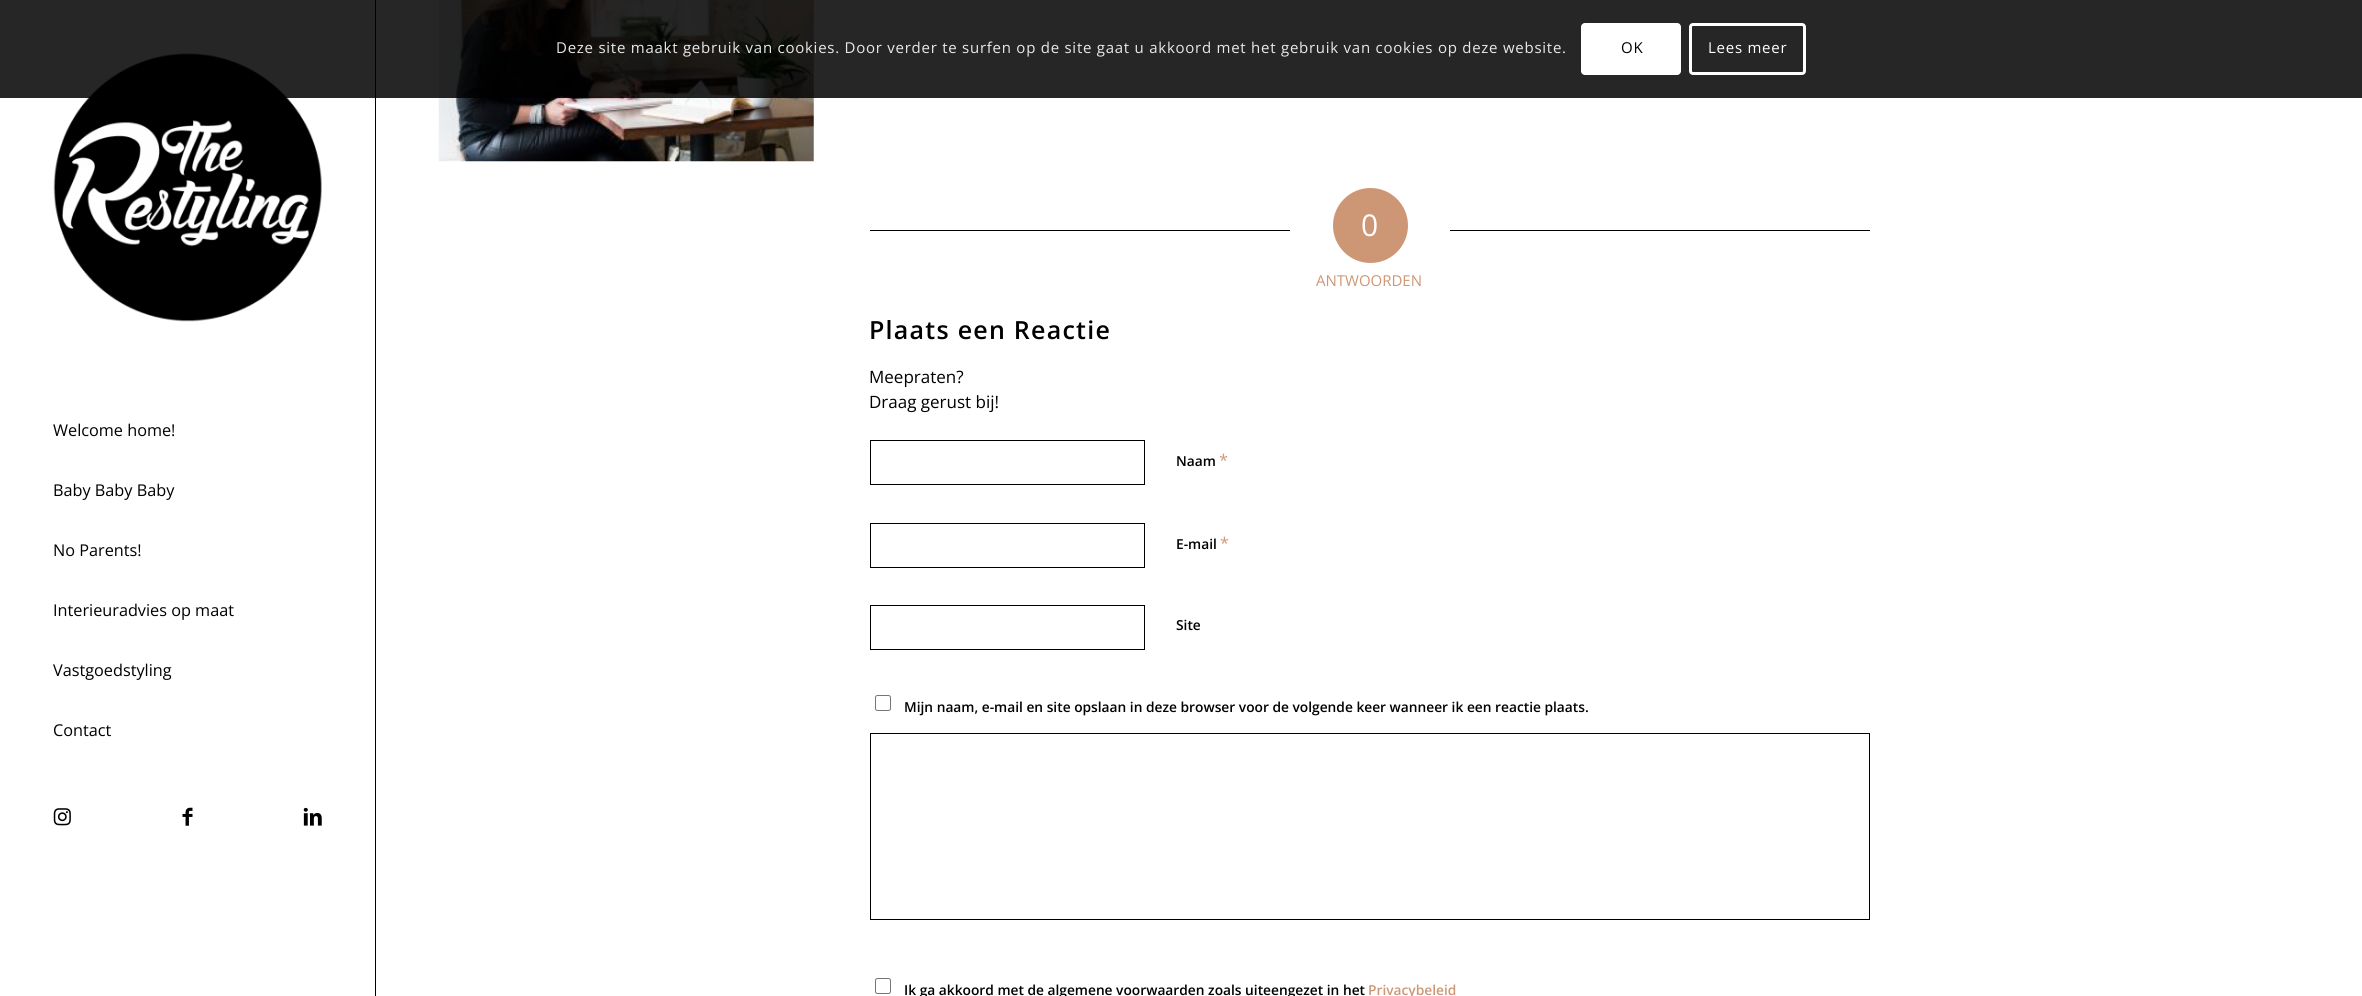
#include <cairo.h>
#include <math.h>
#include <stddef.h>

typedef struct { double x, y; const char *s; } line_t;

static void ink(cairo_t *ctx, unsigned color) {
    cairo_set_source_rgb(ctx, (color >> 16) / 255.0, (color >> 8 & 255) / 255.0, (color & 255) / 255.0);
}

static void write_spaced(cairo_t *ctx, double x, double y, const char *s, double letter, double word) {
    cairo_move_to(ctx, x, y);
    while (*s) {
        char ch[5] = {0};
        int n = 0;
        do ch[n++] = *s++; while ((*s & 0xC0) == 0x80);
        cairo_show_text(ctx, ch);
        cairo_rel_move_to(ctx, letter + word * (*ch == ' '), 0);
    }
}

static void round_path(cairo_t *ctx, double x, double y, double w, double h, double r) {
    cairo_new_sub_path(ctx);
    cairo_arc(ctx, x + w - r, y + h - r, r, 0, M_PI / 2);
    cairo_arc(ctx, x + r, y + h - r, r, M_PI / 2, M_PI);
    cairo_arc(ctx, x + r, y + r, r, M_PI, 1.5 * M_PI);
    cairo_arc(ctx, x + w - r, y + r, r, 1.5 * M_PI, 2 * M_PI);
    cairo_close_path(ctx);
}

static void paste(cairo_t *ctx, const char *path, double x, double y, double w, double h) {
    cairo_surface_t *image = cairo_image_surface_create_from_png(path);
    cairo_save(ctx);
    cairo_set_source_surface(ctx, image, x, y);
    cairo_rectangle(ctx, x, y, w, h);
    cairo_fill(ctx);
    cairo_restore(ctx);
    cairo_surface_destroy(image);
}

int main(void) {
    cairo_surface_t *surface = cairo_image_surface_create(CAIRO_FORMAT_RGB24, 2362, 996);
    cairo_t *ctx = cairo_create(surface);
    cairo_font_options_t *options = cairo_font_options_create();
    cairo_font_options_set_hint_metrics(options, CAIRO_HINT_METRICS_OFF);
    cairo_font_options_set_hint_style(options, CAIRO_HINT_STYLE_NONE);
    cairo_set_font_options(ctx, options);
    cairo_set_miter_limit(ctx, 4);
    ink(ctx, 0xFFFFFF);
    cairo_paint(ctx);
    paste(ctx, "media/1.png", 53, 53, 269, 269);
    ink(ctx, 0x000000);
    cairo_rectangle(ctx, 375, 0, 1, 996);
    cairo_fill(ctx);
    paste(ctx, "media/5.png", 438, 0, 376, 162);
    cairo_set_source_rgba(ctx, 0, 0, 0, 0.85);
    cairo_rectangle(ctx, 0, 0, 2362, 98);
    cairo_fill(ctx);
    cairo_select_font_face(ctx, "Open Sans", CAIRO_FONT_SLANT_NORMAL, CAIRO_FONT_WEIGHT_NORMAL);
    cairo_set_font_size(ctx, 15);
    ink(ctx, 0xE9E9E9);
    write_spaced(ctx, 556, 53, "Deze site maakt gebruik van cookies. Door verder te surfen op de site gaat u akkoord met het gebruik van cookies op deze website.", 0.75, 0);
    ink(ctx, 0xFFFFFF);
    round_path(ctx, 1581, 23, 100, 52, 4);
    cairo_fill(ctx);
    ink(ctx, 0x000000);
    write_spaced(ctx, 1621, 53, "OK", 0.75, 0);
    round_path(ctx, 1690.5, 24.5, 114, 49, 2.5);
    ink(ctx, 0xFFFFFF);
    cairo_set_line_width(ctx, 3);
    cairo_stroke(ctx);
    write_spaced(ctx, 1708, 53, "Lees meer", 0.75, 0);
    cairo_set_font_size(ctx, 16.25);
    ink(ctx, 0x000000);
    {
        static const line_t items[] = {
            {53, 436, "Welcome home!"},
            {53, 496, "Baby Baby Baby"},
            {53, 556, "No Parents!"},
            {53, 616, "Interieuradvies op maat"},
            {53, 676, "Vastgoedstyling"},
            {53, 736, "Contact"},
        };
        for (size_t i = 0; i < sizeof items / sizeof *items; i++) {
            cairo_move_to(ctx, items[i].x, items[i].y);
            cairo_show_text(ctx, items[i].s);
        }
    }
    paste(ctx, "media/2.png", 53, 808, 18, 18);
    paste(ctx, "media/3.png", 182, 807, 11, 19);
    paste(ctx, "media/4.png", 303, 807, 19, 19);
    cairo_rectangle(ctx, 870, 230, 420, 1);
    cairo_fill(ctx);
    ink(ctx, 0xCD9775);
    cairo_arc(ctx, 1370.5, 225.5, 37.5, 0, 2 * M_PI);
    cairo_fill(ctx);
    cairo_set_font_size(ctx, 30);
    ink(ctx, 0xFFFFFF);
    cairo_move_to(ctx, 1361, 236);
    cairo_show_text(ctx, "0");
    ink(ctx, 0x000000);
    cairo_rectangle(ctx, 1450, 230, 420, 1);
    cairo_fill(ctx);
    cairo_set_font_size(ctx, 15);
    ink(ctx, 0xCD9775);
    cairo_move_to(ctx, 1316, 286);
    cairo_show_text(ctx, "ANTWOORDEN");
    cairo_select_font_face(ctx, "Open Sans SemiBold", CAIRO_FONT_SLANT_NORMAL, CAIRO_FONT_WEIGHT_NORMAL);
    cairo_set_font_size(ctx, 25);
    ink(ctx, 0x000000);
    write_spaced(ctx, 869, 339, "Plaats een Reactie", 1.25, 0);
    cairo_select_font_face(ctx, "Open Sans", CAIRO_FONT_SLANT_NORMAL, CAIRO_FONT_WEIGHT_NORMAL);
    cairo_set_font_size(ctx, 17);
    cairo_move_to(ctx, 869, 383);
    cairo_show_text(ctx, "Meepraten?");
    cairo_move_to(ctx, 869, 408);
    cairo_show_text(ctx, "Draag gerust bij!");
    cairo_rectangle(ctx, 870.5, 440.5, 274, 44);
    cairo_set_line_width(ctx, 1);
    cairo_stroke(ctx);
    cairo_select_font_face(ctx, "Open Sans SemiBold", CAIRO_FONT_SLANT_NORMAL, CAIRO_FONT_WEIGHT_NORMAL);
    cairo_set_font_size(ctx, 13.75);
    cairo_move_to(ctx, 1176, 466);
    cairo_show_text(ctx, "Naam");
    cairo_select_font_face(ctx, "Open Sans", CAIRO_FONT_SLANT_NORMAL, CAIRO_FONT_WEIGHT_NORMAL);
    cairo_set_font_size(ctx, 16.25);
    ink(ctx, 0xCD9775);
    cairo_move_to(ctx, 1219, 466);
    cairo_show_text(ctx, "*");
    cairo_rectangle(ctx, 870.5, 523.5, 274, 44);
    ink(ctx, 0x000000);
    cairo_stroke(ctx);
    cairo_select_font_face(ctx, "Open Sans SemiBold", CAIRO_FONT_SLANT_NORMAL, CAIRO_FONT_WEIGHT_NORMAL);
    cairo_set_font_size(ctx, 13.75);
    cairo_move_to(ctx, 1176, 549);
    cairo_show_text(ctx, "E-mail");
    cairo_select_font_face(ctx, "Open Sans", CAIRO_FONT_SLANT_NORMAL, CAIRO_FONT_WEIGHT_NORMAL);
    cairo_set_font_size(ctx, 16.25);
    ink(ctx, 0xCD9775);
    cairo_move_to(ctx, 1220, 549);
    cairo_show_text(ctx, "*");
    cairo_rectangle(ctx, 870.5, 605.5, 274, 44);
    ink(ctx, 0x000000);
    cairo_stroke(ctx);
    cairo_select_font_face(ctx, "Open Sans SemiBold", CAIRO_FONT_SLANT_NORMAL, CAIRO_FONT_WEIGHT_NORMAL);
    cairo_set_font_size(ctx, 13.75);
    cairo_move_to(ctx, 1176, 630);
    cairo_show_text(ctx, "Site");
    round_path(ctx, 875.5, 695.5, 15, 15, 2);
    ink(ctx, 0x767676);
    cairo_stroke(ctx);
    ink(ctx, 0x000000);
    cairo_move_to(ctx, 904, 712);
    cairo_show_text(ctx, "Mijn naam, e-mail en site opslaan in deze browser voor de volgende keer wanneer ik een reactie plaats.");
    cairo_rectangle(ctx, 870.5, 733.5, 999, 186);
    cairo_stroke(ctx);
    round_path(ctx, 875.5, 978.5, 15, 15, 2);
    ink(ctx, 0x767676);
    cairo_stroke(ctx);
    ink(ctx, 0x000000);
    cairo_move_to(ctx, 904, 995);
    cairo_show_text(ctx, "Ik ga akkoord met de algemene voorwaarden zoals uiteengezet in het");
    ink(ctx, 0xCD9775);
    cairo_move_to(ctx, 1368, 995);
    cairo_show_text(ctx, "Privacybeleid");
    cairo_surface_write_to_png(surface, "image.png");
    cairo_font_options_destroy(options);
    cairo_destroy(ctx);
    cairo_surface_destroy(surface);
    return 0;
}
